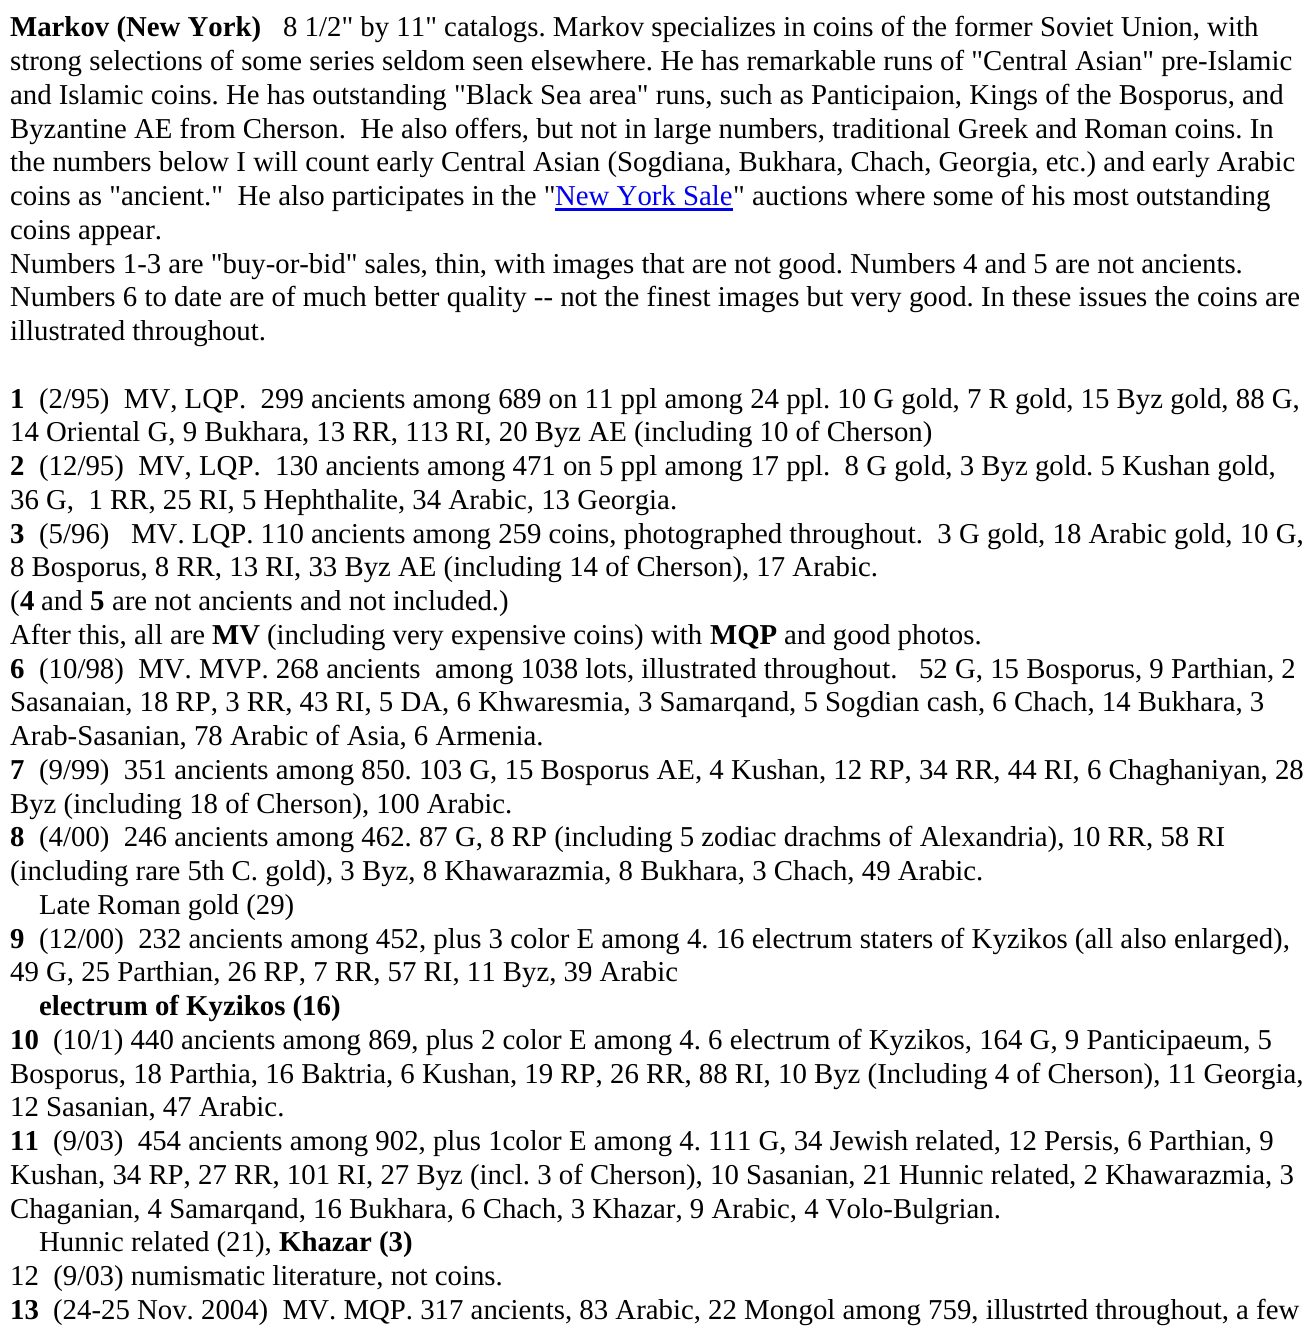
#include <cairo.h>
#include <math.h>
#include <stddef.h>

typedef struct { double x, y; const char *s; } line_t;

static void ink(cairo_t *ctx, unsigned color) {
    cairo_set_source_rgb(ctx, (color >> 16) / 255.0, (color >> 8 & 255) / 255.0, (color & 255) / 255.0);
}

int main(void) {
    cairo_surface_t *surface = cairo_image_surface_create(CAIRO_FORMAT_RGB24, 1315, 1337);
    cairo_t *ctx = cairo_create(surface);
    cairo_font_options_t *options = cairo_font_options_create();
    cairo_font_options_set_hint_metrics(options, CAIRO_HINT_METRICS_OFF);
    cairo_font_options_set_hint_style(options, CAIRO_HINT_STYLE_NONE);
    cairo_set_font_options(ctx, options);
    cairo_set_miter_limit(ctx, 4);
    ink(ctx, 0xFFFFFF);
    cairo_paint(ctx);
    cairo_select_font_face(ctx, "Liberation Serif", CAIRO_FONT_SLANT_NORMAL, CAIRO_FONT_WEIGHT_BOLD);
    cairo_set_font_size(ctx, 28.8);
    ink(ctx, 0x000000);
    cairo_move_to(ctx, 10, 36);
    cairo_show_text(ctx, "Markov (New York)");
    cairo_select_font_face(ctx, "Liberation Serif", CAIRO_FONT_SLANT_NORMAL, CAIRO_FONT_WEIGHT_NORMAL);
    {
        static const line_t items[] = {
            {283, 36, "8 1/2\" by 11\" catalogs. Markov specializes in coins of the former Soviet Union, with"},
            {10, 70, "strong selections of some series seldom seen elsewhere. He has remarkable runs of \"Central Asian\" pre-Islamic"},
            {10, 104, "and Islamic coins. He has outstanding \"Black Sea area\" runs, such as Panticipaion, Kings of the Bosporus, and"},
            {10, 138, "Byzantine AE from Cherson.  He also offers, but not in large numbers, traditional Greek and Roman coins. In"},
            {10, 171, "the numbers below I will count early Central Asian (Sogdiana, Bukhara, Chach, Georgia, etc.) and early Arabic"},
            {10, 205, "coins as \"ancient.\"  He also participates in the \""},
        };
        for (size_t i = 0; i < sizeof items / sizeof *items; i++) {
            cairo_move_to(ctx, items[i].x, items[i].y);
            cairo_show_text(ctx, items[i].s);
        }
    }
    ink(ctx, 0x0000EE);
    cairo_rectangle(ctx, 555, 208, 178, 3);
    cairo_fill(ctx);
    cairo_move_to(ctx, 555, 205);
    cairo_show_text(ctx, "New York Sale");
    ink(ctx, 0x000000);
    {
        static const line_t items[] = {
            {733, 205, "\" auctions where some of his most outstanding"},
            {10, 239, "coins appear."},
            {10, 273, "Numbers 1-3 are \"buy-or-bid\" sales, thin, with images that are not good. Numbers 4 and 5 are not ancients."},
            {10, 306, "Numbers 6 to date are of much better quality -- not the finest images but very good. In these issues the coins are"},
            {10, 340, "illustrated throughout."},
        };
        for (size_t i = 0; i < sizeof items / sizeof *items; i++) {
            cairo_move_to(ctx, items[i].x, items[i].y);
            cairo_show_text(ctx, items[i].s);
        }
    }
    cairo_select_font_face(ctx, "Liberation Serif", CAIRO_FONT_SLANT_NORMAL, CAIRO_FONT_WEIGHT_BOLD);
    cairo_move_to(ctx, 10, 408);
    cairo_show_text(ctx, "1");
    cairo_select_font_face(ctx, "Liberation Serif", CAIRO_FONT_SLANT_NORMAL, CAIRO_FONT_WEIGHT_NORMAL);
    cairo_move_to(ctx, 39, 408);
    cairo_show_text(ctx, "(2/95)  MV, LQP.  299 ancients among 689 on 11 ppl among 24 ppl. 10 G gold, 7 R gold, 15 Byz gold, 88 G,");
    cairo_move_to(ctx, 10, 441);
    cairo_show_text(ctx, "14 Oriental G, 9 Bukhara, 13 RR, 113 RI, 20 Byz AE (including 10 of Cherson)");
    cairo_select_font_face(ctx, "Liberation Serif", CAIRO_FONT_SLANT_NORMAL, CAIRO_FONT_WEIGHT_BOLD);
    cairo_move_to(ctx, 10, 475);
    cairo_show_text(ctx, "2");
    cairo_select_font_face(ctx, "Liberation Serif", CAIRO_FONT_SLANT_NORMAL, CAIRO_FONT_WEIGHT_NORMAL);
    cairo_move_to(ctx, 39, 475);
    cairo_show_text(ctx, "(12/95)  MV, LQP.  130 ancients among 471 on 5 ppl among 17 ppl.  8 G gold, 3 Byz gold. 5 Kushan gold,");
    cairo_move_to(ctx, 10, 509);
    cairo_show_text(ctx, "36 G,  1 RR, 25 RI, 5 Hephthalite, 34 Arabic, 13 Georgia.");
    cairo_select_font_face(ctx, "Liberation Serif", CAIRO_FONT_SLANT_NORMAL, CAIRO_FONT_WEIGHT_BOLD);
    cairo_move_to(ctx, 10, 543);
    cairo_show_text(ctx, "3");
    cairo_select_font_face(ctx, "Liberation Serif", CAIRO_FONT_SLANT_NORMAL, CAIRO_FONT_WEIGHT_NORMAL);
    {
        static const line_t items[] = {
            {39, 543, "(5/96)   MV. LQP. 110 ancients among 259 coins, photographed throughout.  3 G gold, 18 Arabic gold, 10 G,"},
            {10, 576, "8 Bosporus, 8 RR, 13 RI, 33 Byz AE (including 14 of Cherson), 17 Arabic."},
            {10, 610, "("},
        };
        for (size_t i = 0; i < sizeof items / sizeof *items; i++) {
            cairo_move_to(ctx, items[i].x, items[i].y);
            cairo_show_text(ctx, items[i].s);
        }
    }
    cairo_select_font_face(ctx, "Liberation Serif", CAIRO_FONT_SLANT_NORMAL, CAIRO_FONT_WEIGHT_BOLD);
    cairo_move_to(ctx, 20, 610);
    cairo_show_text(ctx, "4");
    cairo_select_font_face(ctx, "Liberation Serif", CAIRO_FONT_SLANT_NORMAL, CAIRO_FONT_WEIGHT_NORMAL);
    cairo_move_to(ctx, 41, 610);
    cairo_show_text(ctx, "and");
    cairo_select_font_face(ctx, "Liberation Serif", CAIRO_FONT_SLANT_NORMAL, CAIRO_FONT_WEIGHT_BOLD);
    cairo_move_to(ctx, 90, 610);
    cairo_show_text(ctx, "5");
    cairo_select_font_face(ctx, "Liberation Serif", CAIRO_FONT_SLANT_NORMAL, CAIRO_FONT_WEIGHT_NORMAL);
    cairo_move_to(ctx, 112, 610);
    cairo_show_text(ctx, "are not ancients and not included.)");
    cairo_move_to(ctx, 10, 644);
    cairo_show_text(ctx, "After this, all are");
    cairo_select_font_face(ctx, "Liberation Serif", CAIRO_FONT_SLANT_NORMAL, CAIRO_FONT_WEIGHT_BOLD);
    cairo_move_to(ctx, 212, 644);
    cairo_show_text(ctx, "MV");
    cairo_select_font_face(ctx, "Liberation Serif", CAIRO_FONT_SLANT_NORMAL, CAIRO_FONT_WEIGHT_NORMAL);
    cairo_move_to(ctx, 267, 644);
    cairo_show_text(ctx, "(including very expensive coins) with");
    cairo_select_font_face(ctx, "Liberation Serif", CAIRO_FONT_SLANT_NORMAL, CAIRO_FONT_WEIGHT_BOLD);
    cairo_move_to(ctx, 710, 644);
    cairo_show_text(ctx, "MQP");
    cairo_select_font_face(ctx, "Liberation Serif", CAIRO_FONT_SLANT_NORMAL, CAIRO_FONT_WEIGHT_NORMAL);
    cairo_move_to(ctx, 784, 644);
    cairo_show_text(ctx, "and good photos.");
    cairo_select_font_face(ctx, "Liberation Serif", CAIRO_FONT_SLANT_NORMAL, CAIRO_FONT_WEIGHT_BOLD);
    cairo_move_to(ctx, 10, 678);
    cairo_show_text(ctx, "6");
    cairo_select_font_face(ctx, "Liberation Serif", CAIRO_FONT_SLANT_NORMAL, CAIRO_FONT_WEIGHT_NORMAL);
    {
        static const line_t items[] = {
            {39, 678, "(10/98)  MV. MVP. 268 ancients  among 1038 lots, illustrated throughout.   52 G, 15 Bosporus, 9 Parthian, 2"},
            {10, 711, "Sasanaian, 18 RP, 3 RR, 43 RI, 5 DA, 6 Khwaresmia, 3 Samarqand, 5 Sogdian cash, 6 Chach, 14 Bukhara, 3"},
            {10, 745, "Arab-Sasanian, 78 Arabic of Asia, 6 Armenia."},
        };
        for (size_t i = 0; i < sizeof items / sizeof *items; i++) {
            cairo_move_to(ctx, items[i].x, items[i].y);
            cairo_show_text(ctx, items[i].s);
        }
    }
    cairo_select_font_face(ctx, "Liberation Serif", CAIRO_FONT_SLANT_NORMAL, CAIRO_FONT_WEIGHT_BOLD);
    cairo_move_to(ctx, 10, 779);
    cairo_show_text(ctx, "7");
    cairo_select_font_face(ctx, "Liberation Serif", CAIRO_FONT_SLANT_NORMAL, CAIRO_FONT_WEIGHT_NORMAL);
    cairo_move_to(ctx, 39, 779);
    cairo_show_text(ctx, "(9/99)  351 ancients among 850. 103 G, 15 Bosporus AE, 4 Kushan, 12 RP, 34 RR, 44 RI, 6 Chaghaniyan, 28");
    cairo_move_to(ctx, 10, 813);
    cairo_show_text(ctx, "Byz (including 18 of Cherson), 100 Arabic.");
    cairo_select_font_face(ctx, "Liberation Serif", CAIRO_FONT_SLANT_NORMAL, CAIRO_FONT_WEIGHT_BOLD);
    cairo_move_to(ctx, 10, 846);
    cairo_show_text(ctx, "8");
    cairo_select_font_face(ctx, "Liberation Serif", CAIRO_FONT_SLANT_NORMAL, CAIRO_FONT_WEIGHT_NORMAL);
    {
        static const line_t items[] = {
            {39, 846, "(4/00)  246 ancients among 462. 87 G, 8 RP (including 5 zodiac drachms of Alexandria), 10 RR, 58 RI"},
            {10, 880, "(including rare 5th C. gold), 3 Byz, 8 Khawarazmia, 8 Bukhara, 3 Chach, 49 Arabic."},
            {39, 914, "Late Roman gold (29)"},
        };
        for (size_t i = 0; i < sizeof items / sizeof *items; i++) {
            cairo_move_to(ctx, items[i].x, items[i].y);
            cairo_show_text(ctx, items[i].s);
        }
    }
    cairo_select_font_face(ctx, "Liberation Serif", CAIRO_FONT_SLANT_NORMAL, CAIRO_FONT_WEIGHT_BOLD);
    cairo_move_to(ctx, 10, 948);
    cairo_show_text(ctx, "9");
    cairo_select_font_face(ctx, "Liberation Serif", CAIRO_FONT_SLANT_NORMAL, CAIRO_FONT_WEIGHT_NORMAL);
    cairo_move_to(ctx, 39, 948);
    cairo_show_text(ctx, "(12/00)  232 ancients among 452, plus 3 color E among 4. 16 electrum staters of Kyzikos (all also enlarged),");
    cairo_move_to(ctx, 10, 981);
    cairo_show_text(ctx, "49 G, 25 Parthian, 26 RP, 7 RR, 57 RI, 11 Byz, 39 Arabic");
    cairo_select_font_face(ctx, "Liberation Serif", CAIRO_FONT_SLANT_NORMAL, CAIRO_FONT_WEIGHT_BOLD);
    cairo_move_to(ctx, 39, 1015);
    cairo_show_text(ctx, "electrum of Kyzikos (16)");
    cairo_move_to(ctx, 10, 1049);
    cairo_show_text(ctx, "10");
    cairo_select_font_face(ctx, "Liberation Serif", CAIRO_FONT_SLANT_NORMAL, CAIRO_FONT_WEIGHT_NORMAL);
    {
        static const line_t items[] = {
            {53, 1049, "(10/1) 440 ancients among 869, plus 2 color E among 4. 6 electrum of Kyzikos, 164 G, 9 Panticipaeum, 5"},
            {10, 1083, "Bosporus, 18 Parthia, 16 Baktria, 6 Kushan, 19 RP, 26 RR, 88 RI, 10 Byz (Including 4 of Cherson), 11 Georgia,"},
            {10, 1116, "12 Sasanian, 47 Arabic."},
        };
        for (size_t i = 0; i < sizeof items / sizeof *items; i++) {
            cairo_move_to(ctx, items[i].x, items[i].y);
            cairo_show_text(ctx, items[i].s);
        }
    }
    cairo_select_font_face(ctx, "Liberation Serif", CAIRO_FONT_SLANT_NORMAL, CAIRO_FONT_WEIGHT_BOLD);
    cairo_move_to(ctx, 10, 1150);
    cairo_show_text(ctx, "11");
    cairo_select_font_face(ctx, "Liberation Serif", CAIRO_FONT_SLANT_NORMAL, CAIRO_FONT_WEIGHT_NORMAL);
    {
        static const line_t items[] = {
            {53, 1150, "(9/03)  454 ancients among 902, plus 1color E among 4. 111 G, 34 Jewish related, 12 Persis, 6 Parthian, 9"},
            {10, 1184, "Kushan, 34 RP, 27 RR, 101 RI, 27 Byz (incl. 3 of Cherson), 10 Sasanian, 21 Hunnic related, 2 Khawarazmia, 3"},
            {10, 1218, "Chaganian, 4 Samarqand, 16 Bukhara, 6 Chach, 3 Khazar, 9 Arabic, 4 Volo-Bulgrian."},
            {39, 1251, "Hunnic related (21),"},
        };
        for (size_t i = 0; i < sizeof items / sizeof *items; i++) {
            cairo_move_to(ctx, items[i].x, items[i].y);
            cairo_show_text(ctx, items[i].s);
        }
    }
    cairo_select_font_face(ctx, "Liberation Serif", CAIRO_FONT_SLANT_NORMAL, CAIRO_FONT_WEIGHT_BOLD);
    cairo_move_to(ctx, 279, 1251);
    cairo_show_text(ctx, "Khazar (3)");
    cairo_select_font_face(ctx, "Liberation Serif", CAIRO_FONT_SLANT_NORMAL, CAIRO_FONT_WEIGHT_NORMAL);
    cairo_move_to(ctx, 10, 1285);
    cairo_show_text(ctx, "12  (9/03) numismatic literature, not coins.");
    cairo_select_font_face(ctx, "Liberation Serif", CAIRO_FONT_SLANT_NORMAL, CAIRO_FONT_WEIGHT_BOLD);
    cairo_move_to(ctx, 10, 1319);
    cairo_show_text(ctx, "13");
    cairo_select_font_face(ctx, "Liberation Serif", CAIRO_FONT_SLANT_NORMAL, CAIRO_FONT_WEIGHT_NORMAL);
    cairo_move_to(ctx, 53, 1319);
    cairo_show_text(ctx, "(24-25 Nov. 2004)  MV. MQP. 317 ancients, 83 Arabic, 22 Mongol among 759, illustrted throughout, a few");
    cairo_surface_write_to_png(surface, "image.png");
    cairo_font_options_destroy(options);
    cairo_destroy(ctx);
    cairo_surface_destroy(surface);
    return 0;
}
